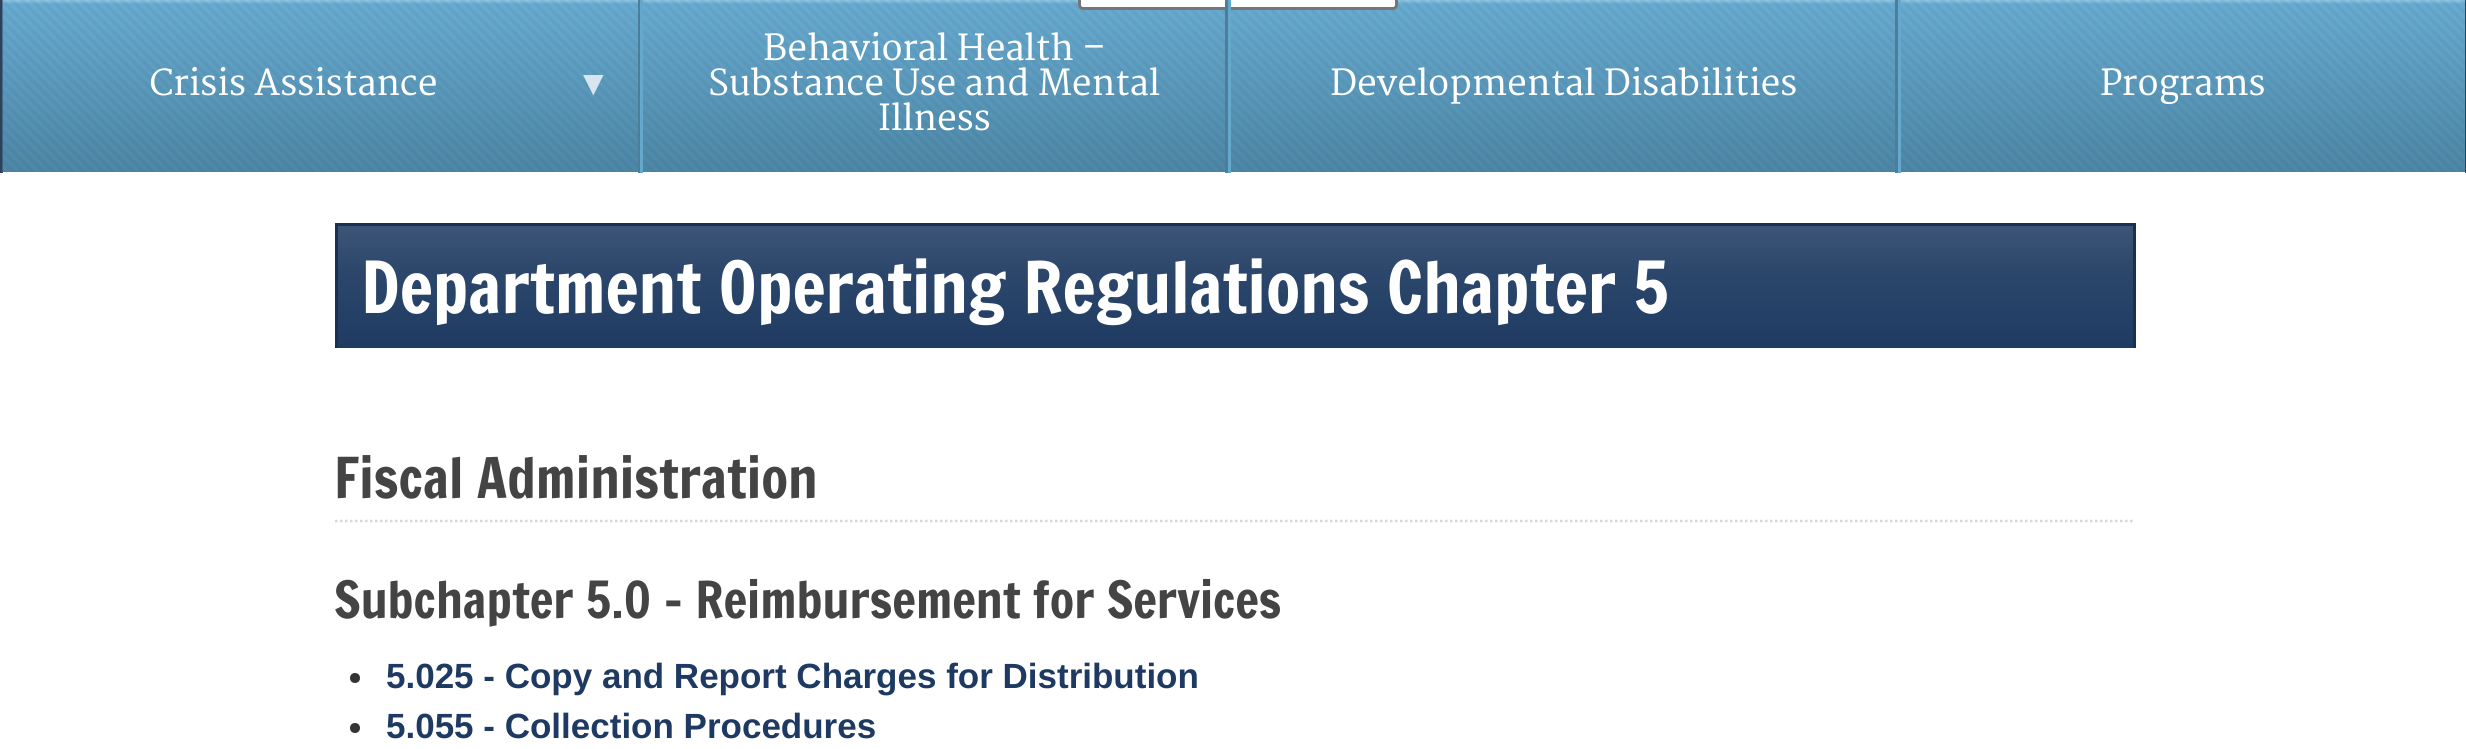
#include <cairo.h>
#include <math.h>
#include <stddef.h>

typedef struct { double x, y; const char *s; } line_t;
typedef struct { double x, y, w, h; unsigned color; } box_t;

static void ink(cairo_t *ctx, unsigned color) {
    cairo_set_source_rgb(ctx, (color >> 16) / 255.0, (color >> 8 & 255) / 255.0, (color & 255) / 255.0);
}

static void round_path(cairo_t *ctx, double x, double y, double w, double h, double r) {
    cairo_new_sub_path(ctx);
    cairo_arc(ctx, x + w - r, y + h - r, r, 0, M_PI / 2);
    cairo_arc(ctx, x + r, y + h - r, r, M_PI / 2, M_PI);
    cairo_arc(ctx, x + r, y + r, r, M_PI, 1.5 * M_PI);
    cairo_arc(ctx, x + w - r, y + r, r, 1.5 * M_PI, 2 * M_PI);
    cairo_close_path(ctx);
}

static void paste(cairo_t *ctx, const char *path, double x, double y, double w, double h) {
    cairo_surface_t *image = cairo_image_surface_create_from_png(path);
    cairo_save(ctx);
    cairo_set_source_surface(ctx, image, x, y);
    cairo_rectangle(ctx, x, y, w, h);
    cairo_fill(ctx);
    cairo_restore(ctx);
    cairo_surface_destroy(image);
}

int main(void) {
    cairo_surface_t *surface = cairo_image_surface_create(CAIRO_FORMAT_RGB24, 2466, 749);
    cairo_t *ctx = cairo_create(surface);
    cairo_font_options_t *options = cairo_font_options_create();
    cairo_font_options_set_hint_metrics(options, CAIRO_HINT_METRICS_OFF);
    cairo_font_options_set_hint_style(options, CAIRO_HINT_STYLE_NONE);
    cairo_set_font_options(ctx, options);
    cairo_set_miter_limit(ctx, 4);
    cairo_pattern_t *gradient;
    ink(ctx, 0xFFFFFF);
    cairo_paint(ctx);
    ink(ctx, 0x2F415A);
    cairo_rectangle(ctx, 2465, 0, 1, 173);
    cairo_fill(ctx);
    cairo_rectangle(ctx, 0, 0, 3, 173);
    cairo_fill(ctx);
    paste(ctx, "media/1.png", 2, 0, 2463, 172);
    ink(ctx, 0xFFFFFF);
    round_path(ctx, 1079.5, -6.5, 317, 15, 3.5);
    cairo_fill_preserve(ctx);
    ink(ctx, 0x767676);
    cairo_set_line_width(ctx, 3);
    cairo_stroke(ctx);
    ink(ctx, 0x4C7E99);
    cairo_rectangle(ctx, 638, 0, 2, 173);
    cairo_fill(ctx);
    cairo_select_font_face(ctx, "Merriweather ExtraLight", CAIRO_FONT_SLANT_NORMAL, CAIRO_FONT_WEIGHT_NORMAL);
    cairo_set_font_size(ctx, 35);
    ink(ctx, 0xFFFFFF);
    cairo_move_to(ctx, 149, 95);
    cairo_show_text(ctx, "Crisis Assistance");
    cairo_select_font_face(ctx, "Liberation Serif", CAIRO_FONT_SLANT_NORMAL, CAIRO_FONT_WEIGHT_NORMAL);
    ink(ctx, 0xD6E5EE);
    cairo_move_to(ctx, 576, 95);
    cairo_show_text(ctx, "▼");
    ink(ctx, 0x4C7E99);
    cairo_rectangle(ctx, 1225, 0, 3, 173);
    cairo_fill(ctx);
    ink(ctx, 0x66A8CC);
    cairo_rectangle(ctx, 640, 0, 3, 173);
    cairo_fill(ctx);
    cairo_select_font_face(ctx, "Merriweather ExtraLight", CAIRO_FONT_SLANT_NORMAL, CAIRO_FONT_WEIGHT_NORMAL);
    ink(ctx, 0xFFFFFF);
    {
        static const line_t items[] = {
            {763, 60, "Behavioral Health –"},
            {708, 95, "Substance Use and Mental"},
            {878, 130, "Illness"},
        };
        for (size_t i = 0; i < sizeof items / sizeof *items; i++) {
            cairo_move_to(ctx, items[i].x, items[i].y);
            cairo_show_text(ctx, items[i].s);
        }
    }
    ink(ctx, 0x4C7E99);
    cairo_rectangle(ctx, 1895, 0, 3, 173);
    cairo_fill(ctx);
    ink(ctx, 0x66A8CC);
    cairo_rectangle(ctx, 1228, 0, 3, 173);
    cairo_fill(ctx);
    ink(ctx, 0xFFFFFF);
    cairo_move_to(ctx, 1330, 95);
    cairo_show_text(ctx, "Developmental Disabilities");
    ink(ctx, 0x66A8CC);
    cairo_rectangle(ctx, 1898, 0, 3, 173);
    cairo_fill(ctx);
    ink(ctx, 0xFFFFFF);
    cairo_move_to(ctx, 2100, 95);
    cairo_show_text(ctx, "Programs");
    gradient = cairo_pattern_create_linear(1235, 225, 1235, 348);
    cairo_pattern_add_color_stop_rgba(gradient, 0, 0.239, 0.333, 0.467, 1);
    cairo_pattern_add_color_stop_rgba(gradient, 0.38, 0.173, 0.278, 0.42, 1);
    cairo_pattern_add_color_stop_rgba(gradient, 1, 0.122, 0.231, 0.384, 1);
    cairo_set_source(ctx, gradient);
    cairo_pattern_destroy(gradient);
    cairo_rectangle(ctx, 338, 226, 1795, 122);
    cairo_fill(ctx);
    {
        static const box_t items[] = {
            {335, 223, 1800, 3, 0x193051},
            {2133, 223, 3, 125, 0x193051},
            {335, 223, 3, 125, 0x193051},
        };
        for (size_t i = 0; i < sizeof items / sizeof *items; i++) {
            ink(ctx, items[i].color);
            cairo_rectangle(ctx, items[i].x, items[i].y, items[i].w, items[i].h);
            cairo_fill(ctx);
        }
    }
    cairo_select_font_face(ctx, "Francois One", CAIRO_FONT_SLANT_NORMAL, CAIRO_FONT_WEIGHT_NORMAL);
    cairo_set_font_size(ctx, 70);
    ink(ctx, 0xFFFFFF);
    cairo_move_to(ctx, 361, 313);
    cairo_show_text(ctx, "Department Operating Regulations Chapter 5");
    cairo_new_path(ctx);
    cairo_move_to(ctx, 335, 521);
    cairo_line_to(ctx, 2135, 521);
    ink(ctx, 0xD8D8D8);
    cairo_set_line_width(ctx, 2.5);
    cairo_set_dash(ctx, (double[]){2.5, 2.5}, 2, 0);
    cairo_stroke(ctx);
    cairo_set_font_size(ctx, 55);
    ink(ctx, 0x444444);
    cairo_move_to(ctx, 334, 498);
    cairo_show_text(ctx, "Fiscal Administration");
    cairo_set_font_size(ctx, 50);
    cairo_move_to(ctx, 334, 618);
    cairo_show_text(ctx, "Subchapter 5.0 - Reimbursement for Services");
    ink(ctx, 0x333333);
    cairo_new_path(ctx);
    cairo_arc(ctx, 355, 678, 5, 0, 2 * M_PI);
    cairo_fill(ctx);
    cairo_select_font_face(ctx, "Liberation Sans", CAIRO_FONT_SLANT_NORMAL, CAIRO_FONT_WEIGHT_BOLD);
    cairo_set_font_size(ctx, 35);
    ink(ctx, 0x1E3A62);
    cairo_move_to(ctx, 386, 688);
    cairo_show_text(ctx, "5.025 - Copy and Report Charges for Distribution");
    ink(ctx, 0x333333);
    cairo_new_path(ctx);
    cairo_arc(ctx, 355, 728, 5, 0, 2 * M_PI);
    cairo_fill(ctx);
    ink(ctx, 0x1E3A62);
    cairo_move_to(ctx, 386, 738);
    cairo_show_text(ctx, "5.055 - Collection Procedures");
    cairo_surface_write_to_png(surface, "image.png");
    cairo_font_options_destroy(options);
    cairo_destroy(ctx);
    cairo_surface_destroy(surface);
    return 0;
}
